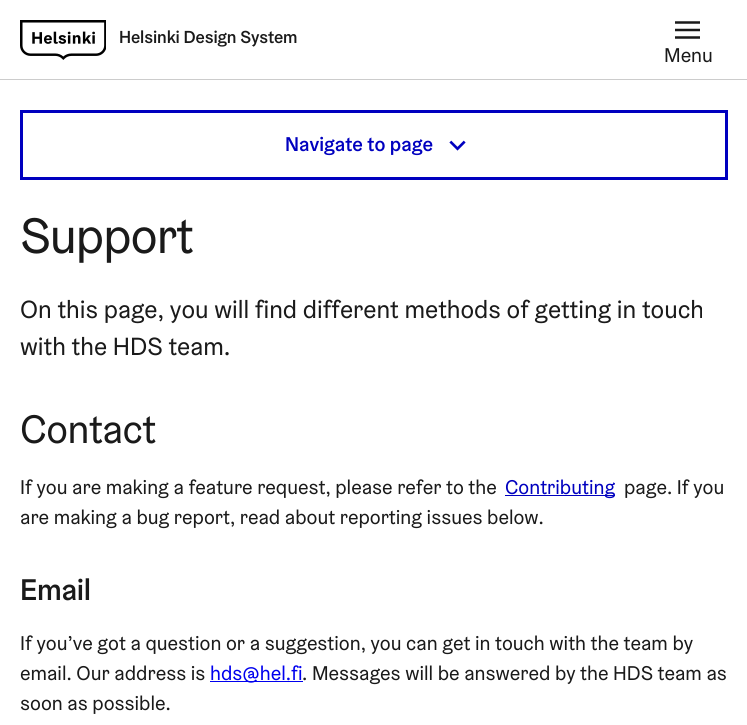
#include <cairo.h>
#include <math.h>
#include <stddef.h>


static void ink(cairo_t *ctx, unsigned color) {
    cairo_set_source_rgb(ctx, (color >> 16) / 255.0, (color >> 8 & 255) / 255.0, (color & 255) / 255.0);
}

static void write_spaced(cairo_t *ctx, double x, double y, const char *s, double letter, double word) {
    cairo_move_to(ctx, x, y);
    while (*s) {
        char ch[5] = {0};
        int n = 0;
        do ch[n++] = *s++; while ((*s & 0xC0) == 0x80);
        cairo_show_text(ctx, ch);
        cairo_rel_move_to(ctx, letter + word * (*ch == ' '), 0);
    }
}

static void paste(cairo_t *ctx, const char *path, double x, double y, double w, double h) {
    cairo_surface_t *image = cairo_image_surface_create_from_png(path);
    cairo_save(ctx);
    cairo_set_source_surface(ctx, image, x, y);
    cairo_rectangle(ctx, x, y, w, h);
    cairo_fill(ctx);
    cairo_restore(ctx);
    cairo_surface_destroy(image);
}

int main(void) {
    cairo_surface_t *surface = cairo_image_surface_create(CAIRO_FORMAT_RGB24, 747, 725);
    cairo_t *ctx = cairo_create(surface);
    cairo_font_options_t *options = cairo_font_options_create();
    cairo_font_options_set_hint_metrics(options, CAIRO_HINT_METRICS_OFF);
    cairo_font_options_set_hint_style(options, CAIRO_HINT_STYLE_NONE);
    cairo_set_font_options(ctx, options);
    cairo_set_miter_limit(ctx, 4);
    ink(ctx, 0xFFFFFF);
    cairo_paint(ctx);
    ink(ctx, 0xCCCCCC);
    cairo_rectangle(ctx, 0, 79, 747, 1);
    cairo_fill(ctx);
    paste(ctx, "media/1.png", 20, 20, 86, 40);
    cairo_select_font_face(ctx, "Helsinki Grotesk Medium", CAIRO_FONT_SLANT_NORMAL, CAIRO_FONT_WEIGHT_NORMAL);
    cairo_set_font_size(ctx, 17.5);
    ink(ctx, 0x1A1A1A);
    write_spaced(ctx, 119, 43, "Helsinki Design System", -0.1, 0);
    paste(ctx, "media/2.png", 675, 21, 25, 18);
    cairo_select_font_face(ctx, "Helsinki Grotesk", CAIRO_FONT_SLANT_NORMAL, CAIRO_FONT_WEIGHT_NORMAL);
    cairo_set_font_size(ctx, 20);
    cairo_move_to(ctx, 664, 62);
    cairo_show_text(ctx, "Menu");
    cairo_rectangle(ctx, 21.5, 111.5, 705, 67);
    ink(ctx, 0x0000BF);
    cairo_set_line_width(ctx, 3);
    cairo_stroke(ctx);
    cairo_select_font_face(ctx, "Helsinki Grotesk Medium", CAIRO_FONT_SLANT_NORMAL, CAIRO_FONT_WEIGHT_NORMAL);
    cairo_move_to(ctx, 285, 151);
    cairo_show_text(ctx, "Navigate to page");
    paste(ctx, "media/3.png", 449, 140, 17, 11);
    cairo_select_font_face(ctx, "Helsinki Grotesk", CAIRO_FONT_SLANT_NORMAL, CAIRO_FONT_WEIGHT_NORMAL);
    cairo_set_font_size(ctx, 50);
    ink(ctx, 0x1A1A1A);
    write_spaced(ctx, 20, 253, "Support", -1, 0);
    cairo_set_font_size(ctx, 25);
    cairo_move_to(ctx, 20, 318);
    cairo_show_text(ctx, "On this page, you will find different methods of getting in touch");
    cairo_move_to(ctx, 20, 355);
    cairo_show_text(ctx, "with the HDS team.");
    cairo_set_font_size(ctx, 40);
    write_spaced(ctx, 20, 443, "Contact", -0.5, 0);
    cairo_set_font_size(ctx, 20);
    cairo_move_to(ctx, 20, 494);
    cairo_show_text(ctx, "If you are making a feature request, please refer to the");
    ink(ctx, 0x0000BF);
    cairo_rectangle(ctx, 505, 495, 110, 1);
    cairo_fill(ctx);
    cairo_move_to(ctx, 505, 494);
    cairo_show_text(ctx, "Contributing");
    ink(ctx, 0x1A1A1A);
    cairo_move_to(ctx, 624, 494);
    cairo_show_text(ctx, "page. If you");
    cairo_move_to(ctx, 20, 524);
    cairo_show_text(ctx, "are making a bug report, read about reporting issues below.");
    cairo_select_font_face(ctx, "Helsinki Grotesk Medium", CAIRO_FONT_SLANT_NORMAL, CAIRO_FONT_WEIGHT_NORMAL);
    cairo_set_font_size(ctx, 30);
    write_spaced(ctx, 20, 600, "Email", -0.25, 0);
    cairo_select_font_face(ctx, "Helsinki Grotesk", CAIRO_FONT_SLANT_NORMAL, CAIRO_FONT_WEIGHT_NORMAL);
    cairo_set_font_size(ctx, 20);
    cairo_move_to(ctx, 20, 650);
    cairo_show_text(ctx, "If you’ve got a question or a suggestion, you can get in touch with the team by");
    cairo_move_to(ctx, 20, 680);
    cairo_show_text(ctx, "email. Our address is");
    ink(ctx, 0x0000EE);
    cairo_rectangle(ctx, 210, 681, 93, 1);
    cairo_fill(ctx);
    cairo_move_to(ctx, 210, 680);
    cairo_show_text(ctx, "hds@hel.fi");
    ink(ctx, 0x1A1A1A);
    cairo_move_to(ctx, 302, 680);
    cairo_show_text(ctx, ". Messages will be answered by the HDS team as");
    cairo_move_to(ctx, 20, 710);
    cairo_show_text(ctx, "soon as possible.");
    cairo_surface_write_to_png(surface, "image.png");
    cairo_font_options_destroy(options);
    cairo_destroy(ctx);
    cairo_surface_destroy(surface);
    return 0;
}
